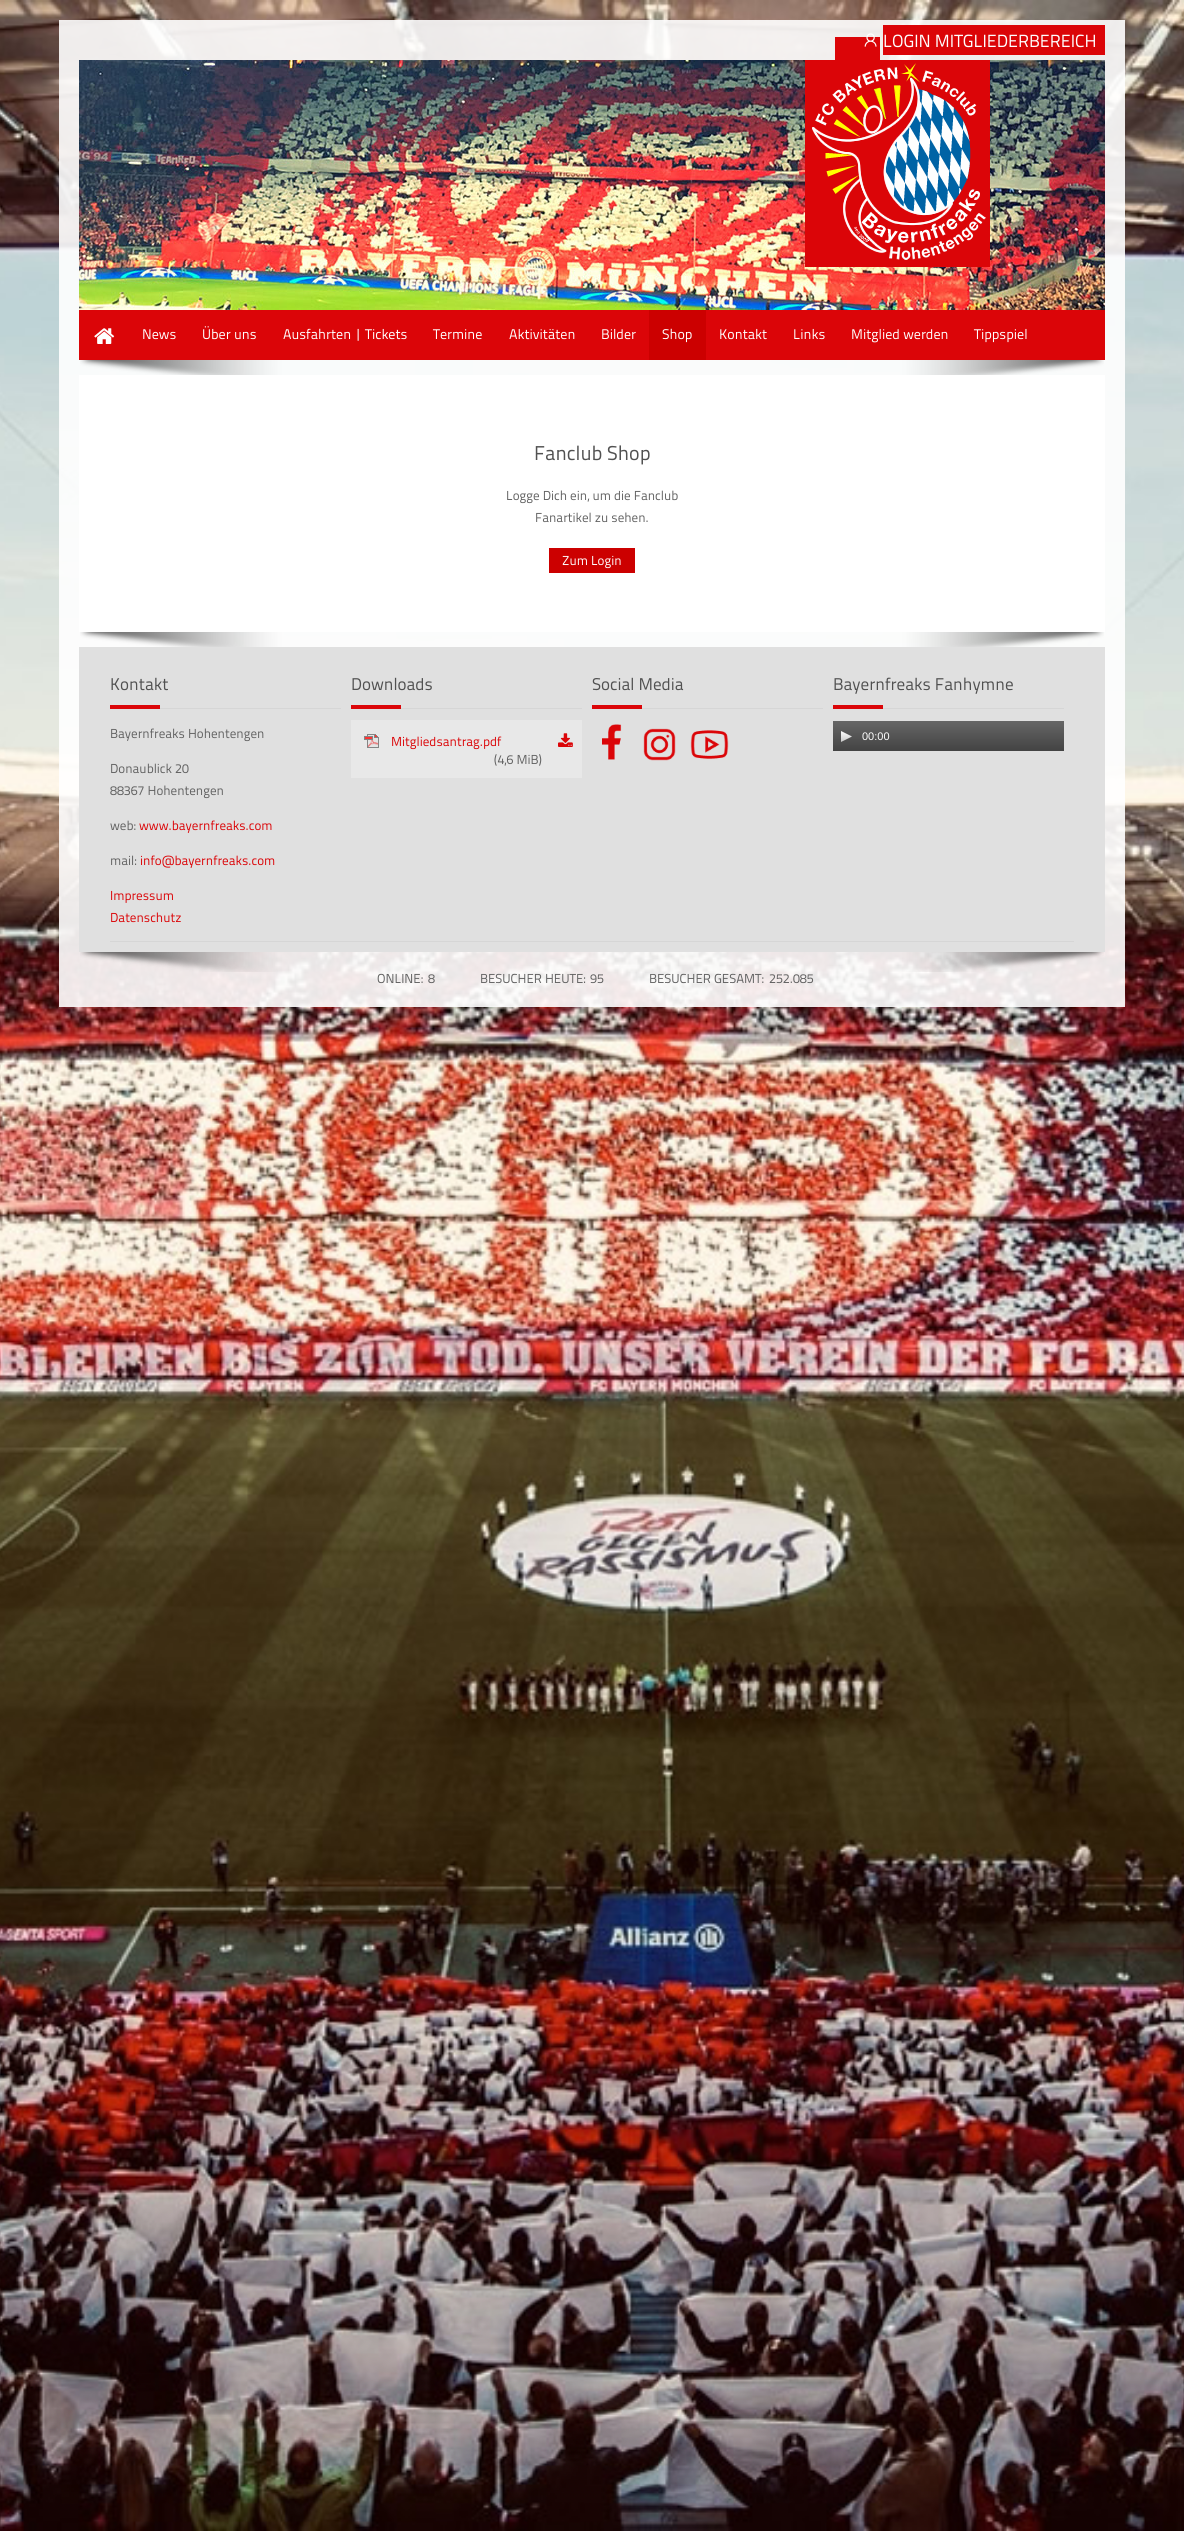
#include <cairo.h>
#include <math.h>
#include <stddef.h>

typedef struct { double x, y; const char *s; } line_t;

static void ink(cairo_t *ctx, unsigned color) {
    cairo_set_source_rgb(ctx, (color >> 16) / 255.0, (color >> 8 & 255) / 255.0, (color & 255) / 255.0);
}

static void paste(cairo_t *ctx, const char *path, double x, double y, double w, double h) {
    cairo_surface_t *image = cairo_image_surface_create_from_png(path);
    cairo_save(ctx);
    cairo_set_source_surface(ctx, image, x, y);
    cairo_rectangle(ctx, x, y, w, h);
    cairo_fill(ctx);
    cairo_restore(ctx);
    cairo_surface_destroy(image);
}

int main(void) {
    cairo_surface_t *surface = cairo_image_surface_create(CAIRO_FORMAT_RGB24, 1184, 2531);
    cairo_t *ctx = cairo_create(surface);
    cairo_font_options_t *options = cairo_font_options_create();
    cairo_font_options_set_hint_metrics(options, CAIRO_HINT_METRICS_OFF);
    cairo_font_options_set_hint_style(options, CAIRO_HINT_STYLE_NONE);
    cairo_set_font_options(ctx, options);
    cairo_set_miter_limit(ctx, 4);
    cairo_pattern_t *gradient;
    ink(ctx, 0xFFFFFF);
    cairo_paint(ctx);
    paste(ctx, "media/1.png", 0, 0, 1184, 2531);
    cairo_set_source_rgba(ctx, 1, 1, 1, 0.9);
    cairo_rectangle(ctx, 59, 20, 1066, 987);
    cairo_fill(ctx);
    ink(ctx, 0xDB0508);
    cairo_rectangle(ctx, 835, 37, 45, 23);
    cairo_fill(ctx);
    cairo_rectangle(ctx, 883, 25, 222, 30);
    cairo_fill(ctx);
    paste(ctx, "media/2.png", 864, 33, 13, 14);
    cairo_select_font_face(ctx, "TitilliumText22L", CAIRO_FONT_SLANT_NORMAL, CAIRO_FONT_WEIGHT_NORMAL);
    cairo_set_font_size(ctx, 17.6);
    ink(ctx, 0xFFFFFF);
    cairo_move_to(ctx, 883, 47);
    cairo_show_text(ctx, "LOGIN MITGLIEDERBEREICH");
    paste(ctx, "media/3.png", 79, 60, 1026, 250);
    paste(ctx, "media/4.png", 805, 60, 185, 207);
    ink(ctx, 0xDB0508);
    cairo_rectangle(ctx, 79, 310, 1026, 50);
    cairo_fill(ctx);
    paste(ctx, "media/5.png", 94, 328, 21, 16);
    cairo_set_font_size(ctx, 14);
    ink(ctx, 0xFFFFFF);
    {
        static const line_t items[] = {
            {142, 339, "News"},
            {202, 339, "Über uns"},
            {283, 339, "Ausfahrten | Tickets"},
            {433, 339, "Termine"},
            {509, 339, "Aktivitäten"},
            {601, 339, "Bilder"},
        };
        for (size_t i = 0; i < sizeof items / sizeof *items; i++) {
            cairo_move_to(ctx, items[i].x, items[i].y);
            cairo_show_text(ctx, items[i].s);
        }
    }
    ink(ctx, 0xCC0000);
    cairo_rectangle(ctx, 649, 310, 57, 50);
    cairo_fill(ctx);
    ink(ctx, 0xFFFFFF);
    {
        static const line_t items[] = {
            {662, 339, "Shop"},
            {719, 339, "Kontakt"},
            {793, 339, "Links"},
            {851, 339, "Mitglied werden"},
            {974, 339, "Tippspiel"},
        };
        for (size_t i = 0; i < sizeof items / sizeof *items; i++) {
            cairo_move_to(ctx, items[i].x, items[i].y);
            cairo_show_text(ctx, items[i].s);
        }
    }
    paste(ctx, "media/6.png", 80, 360, 1024, 15);
    cairo_rectangle(ctx, 79, 375, 1026, 257);
    cairo_fill(ctx);
    cairo_set_font_size(ctx, 20);
    ink(ctx, 0x515151);
    cairo_move_to(ctx, 534, 460);
    cairo_show_text(ctx, "Fanclub Shop");
    cairo_set_font_size(ctx, 13);
    ink(ctx, 0x626262);
    cairo_move_to(ctx, 506, 500);
    cairo_show_text(ctx, "Logge Dich ein, um die Fanclub");
    cairo_move_to(ctx, 535, 522);
    cairo_show_text(ctx, "Fanartikel zu sehen.");
    ink(ctx, 0xCC0000);
    cairo_rectangle(ctx, 549, 548, 86, 25);
    cairo_fill(ctx);
    ink(ctx, 0xFFFFFF);
    cairo_move_to(ctx, 562, 565);
    cairo_show_text(ctx, "Zum Login");
    ink(ctx, 0xE0E0E0);
    cairo_rectangle(ctx, 79, 647, 1026, 305);
    cairo_fill(ctx);
    paste(ctx, "media/7.png", 80, 632, 1024, 15);
    ink(ctx, 0xD6D6D6);
    cairo_rectangle(ctx, 160, 708, 181, 1);
    cairo_fill(ctx);
    cairo_set_font_size(ctx, 17);
    ink(ctx, 0x515151);
    cairo_move_to(ctx, 110, 690);
    cairo_show_text(ctx, "Kontakt");
    ink(ctx, 0xDB0508);
    cairo_rectangle(ctx, 110, 705, 50, 4);
    cairo_fill(ctx);
    cairo_set_font_size(ctx, 13);
    ink(ctx, 0x626262);
    {
        static const line_t items[] = {
            {110, 738, "Bayernfreaks Hohentengen"},
            {110, 773, "Donaublick 20"},
            {110, 795, "88367 Hohentengen"},
            {110, 830, "web:"},
        };
        for (size_t i = 0; i < sizeof items / sizeof *items; i++) {
            cairo_move_to(ctx, items[i].x, items[i].y);
            cairo_show_text(ctx, items[i].s);
        }
    }
    ink(ctx, 0xDB0508);
    cairo_move_to(ctx, 139, 830);
    cairo_show_text(ctx, "www.bayernfreaks.com");
    ink(ctx, 0x626262);
    cairo_move_to(ctx, 110, 865);
    cairo_show_text(ctx, "mail:");
    ink(ctx, 0xDB0508);
    {
        static const line_t items[] = {
            {140, 865, "info@bayernfreaks.com"},
            {110, 900, "Impressum"},
            {110, 922, "Datenschutz"},
        };
        for (size_t i = 0; i < sizeof items / sizeof *items; i++) {
            cairo_move_to(ctx, items[i].x, items[i].y);
            cairo_show_text(ctx, items[i].s);
        }
    }
    ink(ctx, 0xD6D6D6);
    cairo_rectangle(ctx, 401, 708, 181, 1);
    cairo_fill(ctx);
    cairo_set_font_size(ctx, 17);
    ink(ctx, 0x515151);
    cairo_move_to(ctx, 351, 690);
    cairo_show_text(ctx, "Downloads");
    ink(ctx, 0xDB0508);
    cairo_rectangle(ctx, 351, 705, 50, 4);
    cairo_fill(ctx);
    ink(ctx, 0xE8E8E8);
    cairo_rectangle(ctx, 351, 720, 231, 58);
    cairo_fill(ctx);
    paste(ctx, "media/8.png", 364, 734, 15, 14);
    cairo_set_font_size(ctx, 13);
    ink(ctx, 0xDB0508);
    cairo_move_to(ctx, 391, 746);
    cairo_show_text(ctx, "Mitgliedsantrag.pdf");
    paste(ctx, "media/9.png", 558, 733, 15, 14);
    ink(ctx, 0x626262);
    cairo_move_to(ctx, 494, 764);
    cairo_show_text(ctx, "(4,6 MiB)");
    ink(ctx, 0xD6D6D6);
    cairo_rectangle(ctx, 642, 708, 181, 1);
    cairo_fill(ctx);
    cairo_set_font_size(ctx, 17);
    ink(ctx, 0x515151);
    cairo_move_to(ctx, 592, 690);
    cairo_show_text(ctx, "Social Media");
    ink(ctx, 0xDB0508);
    cairo_rectangle(ctx, 592, 705, 50, 4);
    cairo_fill(ctx);
    paste(ctx, "media/10.png", 602, 724, 20, 36);
    paste(ctx, "media/11.png", 643, 728, 33, 33);
    paste(ctx, "media/12.png", 690, 730, 39, 29);
    ink(ctx, 0xD6D6D6);
    cairo_rectangle(ctx, 883, 708, 181, 1);
    cairo_fill(ctx);
    ink(ctx, 0x515151);
    cairo_move_to(ctx, 833, 690);
    cairo_show_text(ctx, "Bayernfreaks Fanhymne");
    ink(ctx, 0xDB0508);
    cairo_rectangle(ctx, 833, 705, 50, 4);
    cairo_fill(ctx);
    gradient = cairo_pattern_create_linear(949, 721, 949, 751);
    cairo_pattern_add_color_stop_rgba(gradient, 0, 0.4, 0.4, 0.4, 1);
    cairo_pattern_add_color_stop_rgba(gradient, 1, 0.263, 0.263, 0.263, 1);
    cairo_set_source(ctx, gradient);
    cairo_pattern_destroy(gradient);
    cairo_rectangle(ctx, 833, 721, 231, 30);
    cairo_fill(ctx);
    paste(ctx, "media/13.png", 841, 731, 11, 11);
    cairo_select_font_face(ctx, "Liberation Sans", CAIRO_FONT_SLANT_NORMAL, CAIRO_FONT_WEIGHT_NORMAL);
    cairo_set_font_size(ctx, 11);
    ink(ctx, 0xFFFFFF);
    cairo_move_to(ctx, 862, 740);
    cairo_show_text(ctx, "00:00");
    ink(ctx, 0xD6D6D6);
    cairo_rectangle(ctx, 110, 941, 964, 1);
    cairo_fill(ctx);
    cairo_select_font_face(ctx, "TitilliumText22L", CAIRO_FONT_SLANT_NORMAL, CAIRO_FONT_WEIGHT_NORMAL);
    cairo_set_font_size(ctx, 13);
    ink(ctx, 0x626262);
    {
        static const line_t items[] = {
            {377, 983, "ONLINE:"},
            {428, 983, "8"},
            {480, 983, "BESUCHER HEUTE:"},
            {590, 983, "95"},
            {649, 983, "BESUCHER GESAMT:"},
            {769, 983, "252.085"},
        };
        for (size_t i = 0; i < sizeof items / sizeof *items; i++) {
            cairo_move_to(ctx, items[i].x, items[i].y);
            cairo_show_text(ctx, items[i].s);
        }
    }
    paste(ctx, "media/14.png", 80, 952, 1024, 20);
    cairo_surface_write_to_png(surface, "image.png");
    cairo_font_options_destroy(options);
    cairo_destroy(ctx);
    cairo_surface_destroy(surface);
    return 0;
}
